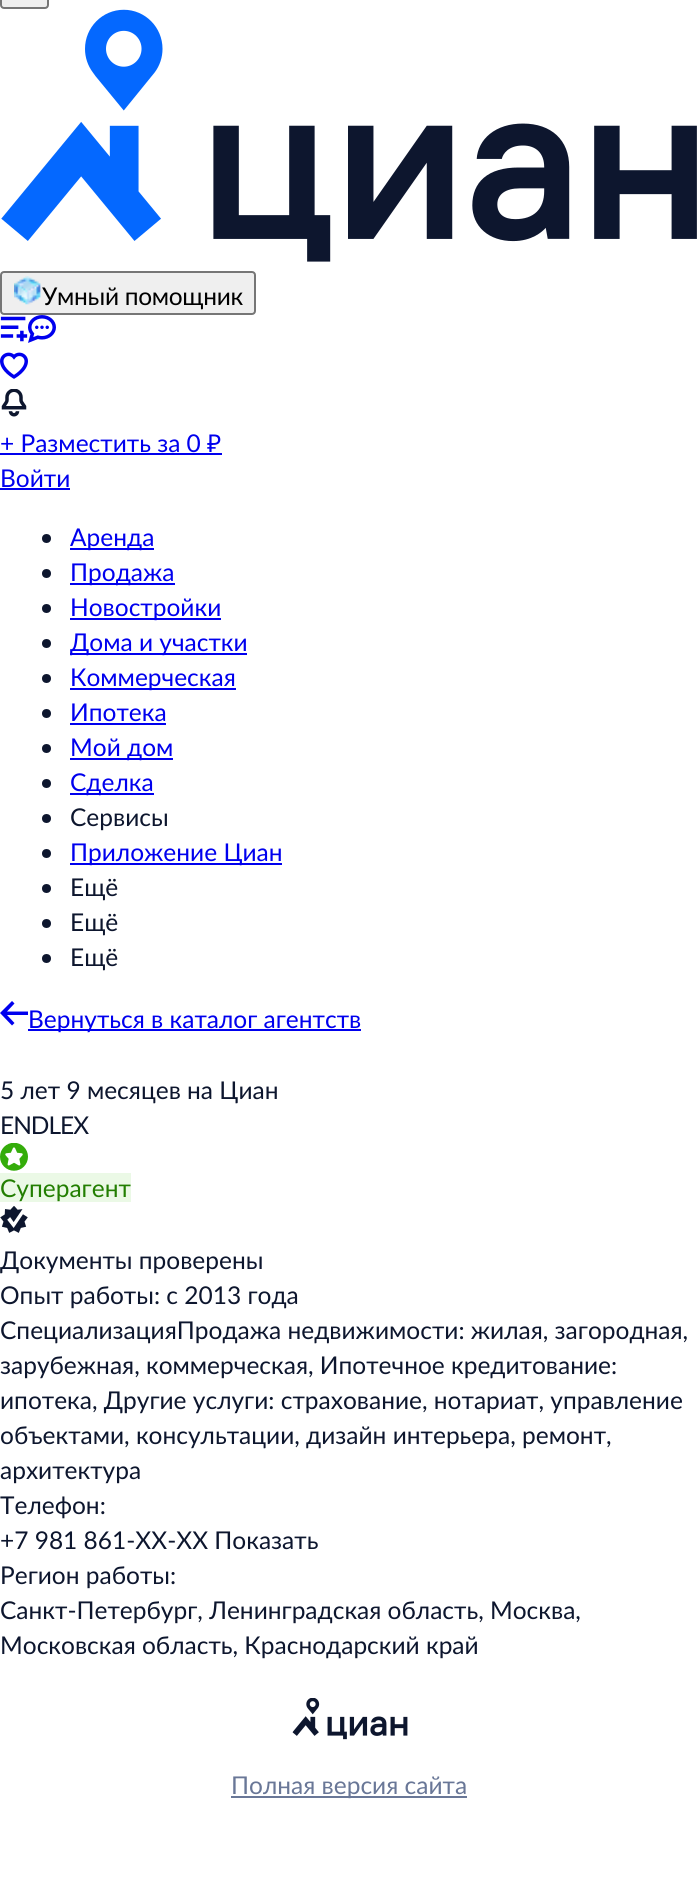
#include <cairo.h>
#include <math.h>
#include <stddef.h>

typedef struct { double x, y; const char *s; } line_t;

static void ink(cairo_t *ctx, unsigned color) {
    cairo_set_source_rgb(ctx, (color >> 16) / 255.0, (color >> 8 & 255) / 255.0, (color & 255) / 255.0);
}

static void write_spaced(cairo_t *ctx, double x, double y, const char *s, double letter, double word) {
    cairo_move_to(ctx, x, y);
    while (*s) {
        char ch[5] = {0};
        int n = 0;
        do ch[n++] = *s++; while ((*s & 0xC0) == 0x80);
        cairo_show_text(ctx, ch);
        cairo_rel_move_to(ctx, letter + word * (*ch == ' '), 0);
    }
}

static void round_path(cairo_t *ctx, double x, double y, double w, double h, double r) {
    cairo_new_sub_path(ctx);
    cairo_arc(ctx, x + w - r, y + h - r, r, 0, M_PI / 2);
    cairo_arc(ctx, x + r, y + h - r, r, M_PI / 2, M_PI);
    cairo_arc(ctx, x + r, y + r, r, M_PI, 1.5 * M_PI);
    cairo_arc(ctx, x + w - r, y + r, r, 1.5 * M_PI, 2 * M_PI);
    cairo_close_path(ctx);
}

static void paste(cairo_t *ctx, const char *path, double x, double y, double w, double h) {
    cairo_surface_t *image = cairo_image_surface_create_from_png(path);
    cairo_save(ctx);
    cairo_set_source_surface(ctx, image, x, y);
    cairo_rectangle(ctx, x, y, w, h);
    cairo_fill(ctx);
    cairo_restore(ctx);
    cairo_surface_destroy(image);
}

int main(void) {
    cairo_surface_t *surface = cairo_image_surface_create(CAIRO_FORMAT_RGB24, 698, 1902);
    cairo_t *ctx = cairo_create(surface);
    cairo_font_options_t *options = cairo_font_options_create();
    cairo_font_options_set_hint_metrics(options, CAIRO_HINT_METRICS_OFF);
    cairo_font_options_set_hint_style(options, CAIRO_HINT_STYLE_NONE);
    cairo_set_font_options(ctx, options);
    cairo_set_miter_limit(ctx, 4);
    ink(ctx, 0xFFFFFF);
    cairo_paint(ctx);
    ink(ctx, 0xEFEFEF);
    round_path(ctx, 1, -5, 47, 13, 3);
    cairo_fill_preserve(ctx);
    ink(ctx, 0x767676);
    cairo_stroke(ctx);
    paste(ctx, "media/1.png", 1, 9, 696, 253);
    ink(ctx, 0xEFEFEF);
    round_path(ctx, 1, 272, 254, 42, 3);
    cairo_fill_preserve(ctx);
    ink(ctx, 0x767676);
    cairo_stroke(ctx);
    paste(ctx, "media/2.png", 14, 276, 27, 29);
    cairo_select_font_face(ctx, "Lato", CAIRO_FONT_SLANT_NORMAL, CAIRO_FONT_WEIGHT_NORMAL);
    cairo_set_font_size(ctx, 24.5);
    ink(ctx, 0x000000);
    write_spaced(ctx, 42, 305, "Умный помощник", -0.3, 0);
    paste(ctx, "media/3.png", 0, 316, 28, 26);
    paste(ctx, "media/4.png", 28, 315, 28, 28);
    paste(ctx, "media/5.png", 0, 352, 28, 27);
    paste(ctx, "media/6.png", 1, 389, 26, 28);
    ink(ctx, 0x0000EE);
    cairo_move_to(ctx, 0, 452);
    cairo_show_text(ctx, "+ Разместить за 0");
    cairo_rectangle(ctx, 0, 453, 222, 2);
    cairo_fill(ctx);
    cairo_select_font_face(ctx, "Noto Sans", CAIRO_FONT_SLANT_NORMAL, CAIRO_FONT_WEIGHT_NORMAL);
    cairo_move_to(ctx, 207, 452);
    cairo_show_text(ctx, "₽");
    cairo_select_font_face(ctx, "Lato", CAIRO_FONT_SLANT_NORMAL, CAIRO_FONT_WEIGHT_NORMAL);
    cairo_move_to(ctx, 0, 487);
    cairo_show_text(ctx, "Войти");
    cairo_rectangle(ctx, 0, 488, 70, 2);
    cairo_fill(ctx);
    ink(ctx, 0x0D162E);
    cairo_arc(ctx, 46.5, 538.5, 4.5, 0, 2 * M_PI);
    cairo_fill(ctx);
    ink(ctx, 0x0000EE);
    cairo_rectangle(ctx, 70, 548, 84, 2);
    cairo_fill(ctx);
    cairo_move_to(ctx, 70, 546);
    cairo_show_text(ctx, "Аренда");
    ink(ctx, 0x0D162E);
    cairo_new_path(ctx);
    cairo_arc(ctx, 46.5, 573.5, 4.5, 0, 2 * M_PI);
    cairo_fill(ctx);
    ink(ctx, 0x0000EE);
    cairo_rectangle(ctx, 70, 583, 105, 2);
    cairo_fill(ctx);
    cairo_move_to(ctx, 70, 581);
    cairo_show_text(ctx, "Продажа");
    ink(ctx, 0x0D162E);
    cairo_new_path(ctx);
    cairo_arc(ctx, 46.5, 608.5, 4.5, 0, 2 * M_PI);
    cairo_fill(ctx);
    ink(ctx, 0x0000EE);
    cairo_rectangle(ctx, 70, 618, 151, 2);
    cairo_fill(ctx);
    cairo_move_to(ctx, 70, 616);
    cairo_show_text(ctx, "Новостройки");
    ink(ctx, 0x0D162E);
    cairo_new_path(ctx);
    cairo_arc(ctx, 46.5, 643.5, 4.5, 0, 2 * M_PI);
    cairo_fill(ctx);
    ink(ctx, 0x0000EE);
    cairo_rectangle(ctx, 70, 653, 177, 2);
    cairo_fill(ctx);
    cairo_move_to(ctx, 70, 651);
    cairo_show_text(ctx, "Дома и участки");
    ink(ctx, 0x0D162E);
    cairo_new_path(ctx);
    cairo_arc(ctx, 46.5, 678.5, 4.5, 0, 2 * M_PI);
    cairo_fill(ctx);
    ink(ctx, 0x0000EE);
    cairo_rectangle(ctx, 70, 688, 166, 2);
    cairo_fill(ctx);
    cairo_move_to(ctx, 70, 686);
    cairo_show_text(ctx, "Коммерческая");
    ink(ctx, 0x0D162E);
    cairo_new_path(ctx);
    cairo_arc(ctx, 46.5, 713.5, 4.5, 0, 2 * M_PI);
    cairo_fill(ctx);
    ink(ctx, 0x0000EE);
    cairo_move_to(ctx, 70, 721);
    cairo_show_text(ctx, "Ипотека");
    cairo_rectangle(ctx, 70, 723, 96, 2);
    cairo_fill(ctx);
    ink(ctx, 0x0D162E);
    cairo_arc(ctx, 46.5, 748.5, 4.5, 0, 2 * M_PI);
    cairo_fill(ctx);
    ink(ctx, 0x0000EE);
    cairo_rectangle(ctx, 70, 758, 103, 2);
    cairo_fill(ctx);
    cairo_move_to(ctx, 70, 756);
    cairo_show_text(ctx, "Мой дом");
    ink(ctx, 0x0D162E);
    cairo_new_path(ctx);
    cairo_arc(ctx, 46.5, 783.5, 4.5, 0, 2 * M_PI);
    cairo_fill(ctx);
    ink(ctx, 0x0000EE);
    cairo_rectangle(ctx, 70, 793, 84, 2);
    cairo_fill(ctx);
    cairo_move_to(ctx, 70, 791);
    cairo_show_text(ctx, "Сделка");
    ink(ctx, 0x0D162E);
    cairo_new_path(ctx);
    cairo_arc(ctx, 46.5, 818.5, 4.5, 0, 2 * M_PI);
    cairo_fill(ctx);
    cairo_move_to(ctx, 70, 826);
    cairo_show_text(ctx, "Сервисы");
    cairo_new_path(ctx);
    cairo_arc(ctx, 46.5, 853.5, 4.5, 0, 2 * M_PI);
    cairo_fill(ctx);
    ink(ctx, 0x0000EE);
    cairo_rectangle(ctx, 70, 863, 212, 2);
    cairo_fill(ctx);
    cairo_move_to(ctx, 70, 861);
    cairo_show_text(ctx, "Приложение Циан");
    ink(ctx, 0x0D162E);
    cairo_new_path(ctx);
    cairo_arc(ctx, 46.5, 888.5, 4.5, 0, 2 * M_PI);
    cairo_fill(ctx);
    cairo_move_to(ctx, 70, 896);
    cairo_show_text(ctx, "Ещё");
    cairo_new_path(ctx);
    cairo_arc(ctx, 46.5, 923.5, 4.5, 0, 2 * M_PI);
    cairo_fill(ctx);
    cairo_move_to(ctx, 70, 931);
    cairo_show_text(ctx, "Ещё");
    cairo_new_path(ctx);
    cairo_arc(ctx, 46.5, 958.5, 4.5, 0, 2 * M_PI);
    cairo_fill(ctx);
    cairo_move_to(ctx, 70, 966);
    cairo_show_text(ctx, "Ещё");
    ink(ctx, 0x0000EE);
    cairo_rectangle(ctx, 28, 1029, 333, 2);
    cairo_fill(ctx);
    cairo_move_to(ctx, 28, 1028);
    cairo_show_text(ctx, "Вернуться в каталог агентств");
    cairo_new_path(ctx);
    cairo_move_to(ctx, 28, 1015);
    cairo_line_to(ctx, 28, 1011.5);
    cairo_line_to(ctx, 7, 1011.5);
    cairo_line_to(ctx, 14.5, 1003.5);
    cairo_line_to(ctx, 12, 1001);
    cairo_line_to(ctx, 0, 1013);
    cairo_line_to(ctx, 12, 1025.5);
    cairo_line_to(ctx, 14.5, 1023);
    cairo_line_to(ctx, 7, 1015);
    cairo_close_path(ctx);
    cairo_fill(ctx);
    ink(ctx, 0x0D162E);
    cairo_move_to(ctx, 0, 1099);
    cairo_show_text(ctx, "5 лет 9 месяцев на Циан");
    write_spaced(ctx, 0, 1134, "ENDLEX", -1, 0);
    ink(ctx, 0xEBF9E6);
    cairo_rectangle(ctx, 0, 1173, 131, 29);
    cairo_fill(ctx);
    paste(ctx, "media/7.png", 0, 1143, 28, 28);
    ink(ctx, 0x227E01);
    cairo_move_to(ctx, 0, 1197);
    cairo_show_text(ctx, "Суперагент");
    paste(ctx, "media/8.png", 0, 1206, 28, 27);
    ink(ctx, 0x0D162E);
    {
        static const line_t items[] = {
            {0, 1269, "Документы проверены"},
            {0, 1304, "Опыт работы: с 2013 года"},
            {0, 1339, "СпециализацияПродажа недвижимости: жилая, загородная,"},
            {0, 1374, "зарубежная, коммерческая, Ипотечное кредитование:"},
            {0, 1409, "ипотека, Другие услуги: страхование, нотариат, управление"},
            {0, 1444, "объектами, консультации, дизайн интерьера, ремонт,"},
            {0, 1479, "архитектура"},
            {0, 1514, "Телефон:"},
            {0, 1549, "+7 981 861-XX-XX Показать"},
            {0, 1584, "Регион работы:"},
            {0, 1619, "Санкт-Петербург, Ленинградская область, Москва,"},
            {0, 1654, "Московская область, Краснодарский край"},
        };
        for (size_t i = 0; i < sizeof items / sizeof *items; i++) {
            cairo_move_to(ctx, items[i].x, items[i].y);
            cairo_show_text(ctx, items[i].s);
        }
    }
    paste(ctx, "media/9.png", 292, 1698, 116, 42);
    ink(ctx, 0x697797);
    cairo_rectangle(ctx, 231, 1796, 236, 2);
    cairo_fill(ctx);
    cairo_move_to(ctx, 231, 1794);
    cairo_show_text(ctx, "Полная версия сайта");
    cairo_surface_write_to_png(surface, "image.png");
    cairo_font_options_destroy(options);
    cairo_destroy(ctx);
    cairo_surface_destroy(surface);
    return 0;
}
